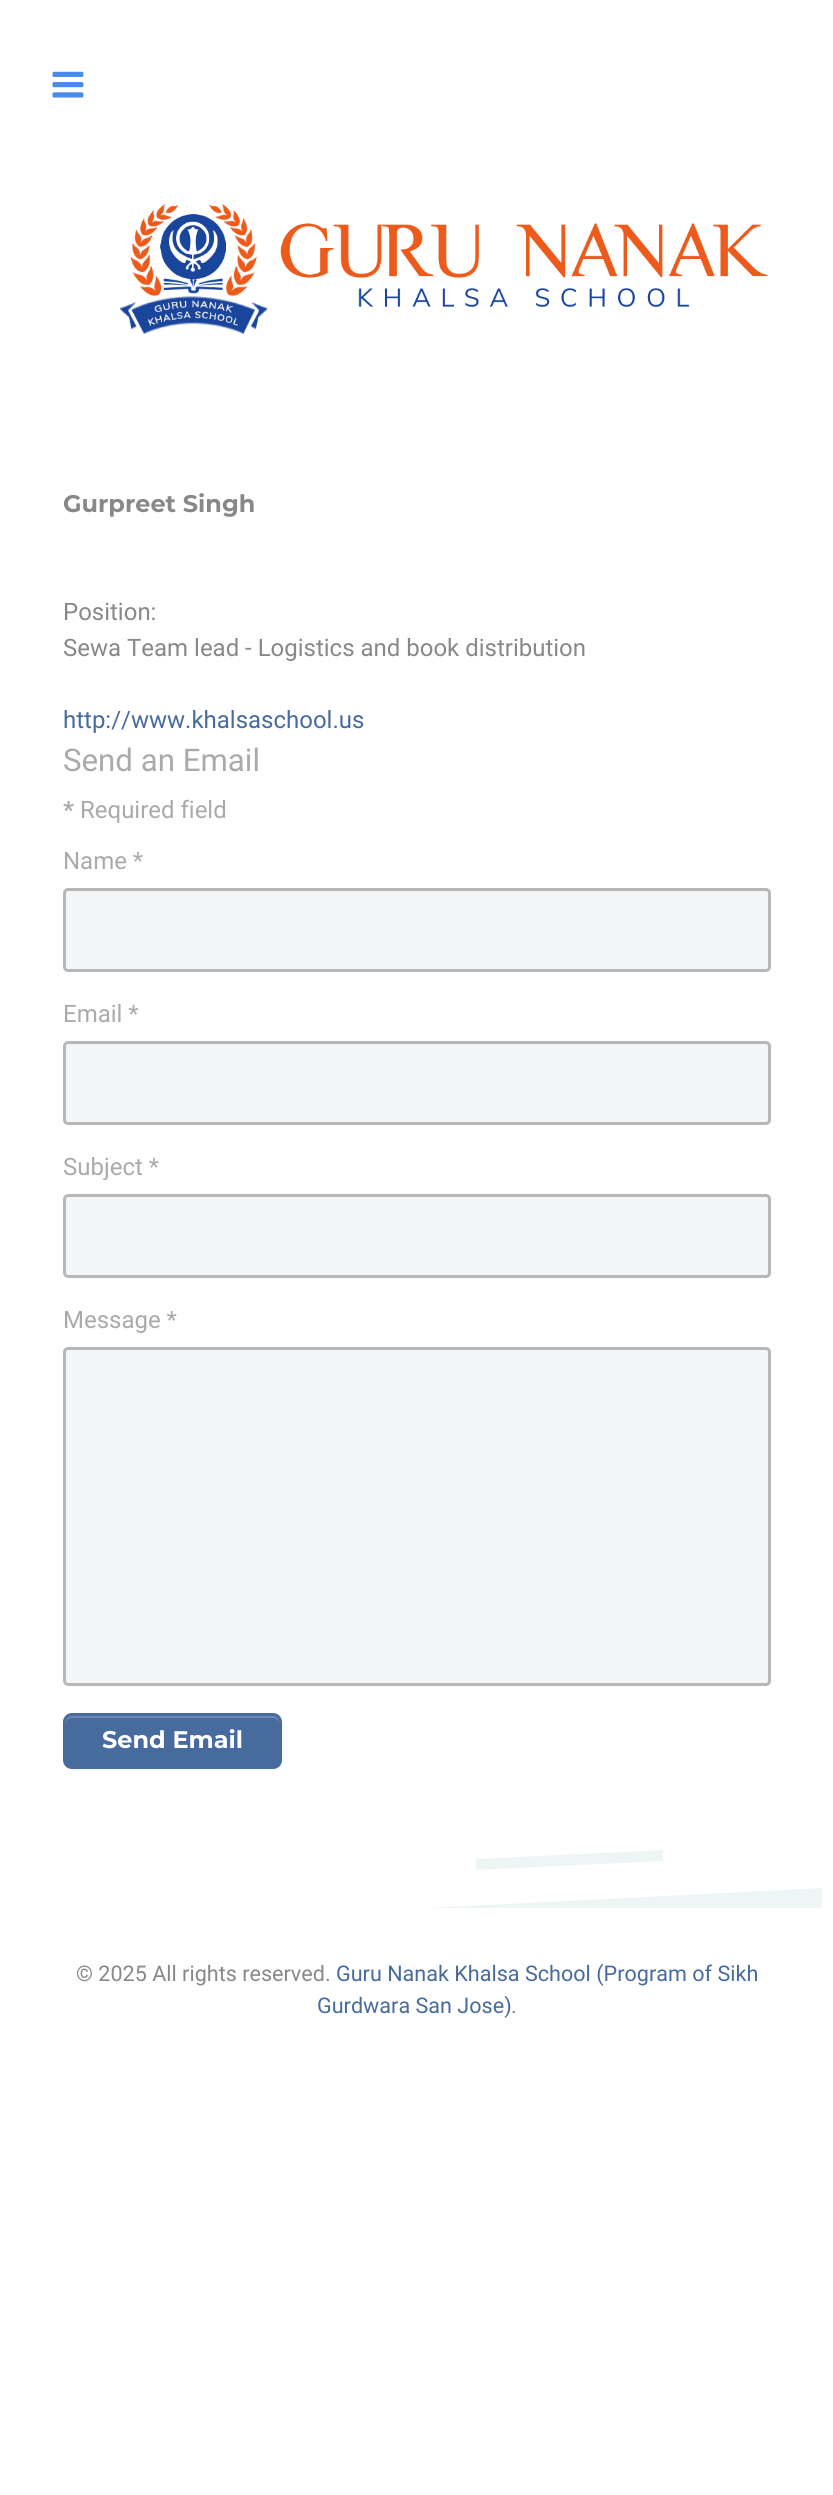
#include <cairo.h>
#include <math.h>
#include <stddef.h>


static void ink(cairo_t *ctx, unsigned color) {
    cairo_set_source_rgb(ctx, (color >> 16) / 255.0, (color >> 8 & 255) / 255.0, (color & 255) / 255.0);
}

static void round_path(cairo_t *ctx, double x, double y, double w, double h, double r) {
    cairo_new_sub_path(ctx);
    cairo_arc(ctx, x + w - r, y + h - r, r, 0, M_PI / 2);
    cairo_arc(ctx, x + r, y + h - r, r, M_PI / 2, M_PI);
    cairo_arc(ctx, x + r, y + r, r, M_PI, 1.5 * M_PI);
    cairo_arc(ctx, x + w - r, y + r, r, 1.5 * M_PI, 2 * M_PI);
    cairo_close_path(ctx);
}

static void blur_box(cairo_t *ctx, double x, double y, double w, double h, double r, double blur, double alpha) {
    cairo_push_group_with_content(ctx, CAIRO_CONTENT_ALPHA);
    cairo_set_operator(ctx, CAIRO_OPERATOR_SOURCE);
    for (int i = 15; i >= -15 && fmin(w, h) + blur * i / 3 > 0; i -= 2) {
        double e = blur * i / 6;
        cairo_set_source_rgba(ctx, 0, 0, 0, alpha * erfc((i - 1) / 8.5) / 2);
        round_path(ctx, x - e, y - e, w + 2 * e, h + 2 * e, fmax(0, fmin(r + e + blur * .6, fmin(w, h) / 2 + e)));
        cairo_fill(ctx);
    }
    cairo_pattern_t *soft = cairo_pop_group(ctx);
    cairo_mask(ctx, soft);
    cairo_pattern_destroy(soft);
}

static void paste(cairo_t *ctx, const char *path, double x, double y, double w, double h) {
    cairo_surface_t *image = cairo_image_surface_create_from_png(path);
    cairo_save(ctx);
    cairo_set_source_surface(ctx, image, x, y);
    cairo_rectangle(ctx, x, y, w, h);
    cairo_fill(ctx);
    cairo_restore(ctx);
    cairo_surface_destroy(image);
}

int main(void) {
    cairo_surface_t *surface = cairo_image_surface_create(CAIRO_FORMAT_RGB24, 833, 2495);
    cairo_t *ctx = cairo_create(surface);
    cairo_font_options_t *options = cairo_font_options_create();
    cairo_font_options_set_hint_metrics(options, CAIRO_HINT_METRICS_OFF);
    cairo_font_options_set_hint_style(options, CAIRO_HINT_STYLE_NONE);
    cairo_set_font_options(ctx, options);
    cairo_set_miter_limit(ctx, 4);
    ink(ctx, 0xFFFFFF);
    cairo_paint(ctx);
    paste(ctx, "media/1.png", 52, 71, 32, 27);
    paste(ctx, "media/2.png", 120, 204, 648, 130);
    cairo_select_font_face(ctx, "Montserrat", CAIRO_FONT_SLANT_NORMAL, CAIRO_FONT_WEIGHT_BOLD);
    cairo_set_font_size(ctx, 24);
    ink(ctx, 0x888888);
    cairo_move_to(ctx, 63, 512);
    cairo_show_text(ctx, "Gurpreet Singh");
    cairo_select_font_face(ctx, "Roboto", CAIRO_FONT_SLANT_NORMAL, CAIRO_FONT_WEIGHT_NORMAL);
    cairo_move_to(ctx, 63, 620);
    cairo_show_text(ctx, "Position:");
    cairo_move_to(ctx, 63, 656);
    cairo_show_text(ctx, "Sewa Team lead - Logistics and book distribution");
    ink(ctx, 0x486B9E);
    cairo_move_to(ctx, 63, 728);
    cairo_show_text(ctx, "http://www.khalsaschool.us");
    cairo_set_font_size(ctx, 31.25);
    ink(ctx, 0xAAAAAA);
    cairo_move_to(ctx, 63, 771);
    cairo_show_text(ctx, "Send an Email");
    cairo_select_font_face(ctx, "Roboto", CAIRO_FONT_SLANT_NORMAL, CAIRO_FONT_WEIGHT_BOLD);
    cairo_set_font_size(ctx, 24);
    cairo_move_to(ctx, 63, 818);
    cairo_show_text(ctx, "*");
    cairo_select_font_face(ctx, "Roboto", CAIRO_FONT_SLANT_NORMAL, CAIRO_FONT_WEIGHT_NORMAL);
    cairo_move_to(ctx, 80, 818);
    cairo_show_text(ctx, "Required field");
    cairo_move_to(ctx, 63, 869);
    cairo_show_text(ctx, "Name *");
    ink(ctx, 0xF3F5F7);
    round_path(ctx, 64.5, 889.5, 705, 81, 3.5);
    cairo_fill_preserve(ctx);
    ink(ctx, 0xB7B7B7);
    cairo_set_line_width(ctx, 3);
    cairo_stroke(ctx);
    ink(ctx, 0xAAAAAA);
    cairo_move_to(ctx, 63, 1022);
    cairo_show_text(ctx, "Email *");
    ink(ctx, 0xF3F5F7);
    round_path(ctx, 64.5, 1042.5, 705, 81, 3.5);
    cairo_fill_preserve(ctx);
    ink(ctx, 0xB7B7B7);
    cairo_stroke(ctx);
    ink(ctx, 0xAAAAAA);
    cairo_move_to(ctx, 63, 1175);
    cairo_show_text(ctx, "Subject *");
    ink(ctx, 0xF3F5F7);
    round_path(ctx, 64.5, 1195.5, 705, 81, 3.5);
    cairo_fill_preserve(ctx);
    ink(ctx, 0xB7B7B7);
    cairo_stroke(ctx);
    ink(ctx, 0xAAAAAA);
    cairo_move_to(ctx, 63, 1328);
    cairo_show_text(ctx, "Message *");
    ink(ctx, 0xF3F5F7);
    round_path(ctx, 64.5, 1348.5, 705, 336, 3.5);
    cairo_fill_preserve(ctx);
    ink(ctx, 0xB7B7B7);
    cairo_stroke(ctx);
    ink(ctx, 0x000000);
    blur_box(ctx, 63, 1715, 219, 55, 9, 1.5, 0.05);
    ink(ctx, 0x486B9E);
    round_path(ctx, 63, 1713, 219, 56, 9);
    cairo_fill(ctx);
    ink(ctx, 0x6D89B1);
    cairo_new_path(ctx);
    cairo_move_to(ctx, 73, 1718);
    cairo_line_to(ctx, 272, 1718);
    cairo_curve_to(ctx, 276, 1718, 279, 1720, 279, 1724);
    cairo_line_to(ctx, 279, 1722);
    cairo_curve_to(ctx, 279, 1719, 276, 1716, 273, 1716);
    cairo_line_to(ctx, 72, 1716);
    cairo_curve_to(ctx, 69, 1716, 66, 1719, 66, 1722);
    cairo_line_to(ctx, 66, 1724);
    cairo_curve_to(ctx, 66, 1720, 69, 1718, 73, 1718);
    cairo_close_path(ctx);
    cairo_fill(ctx);
    cairo_select_font_face(ctx, "Montserrat", CAIRO_FONT_SLANT_NORMAL, CAIRO_FONT_WEIGHT_BOLD);
    ink(ctx, 0xFFFFFF);
    cairo_move_to(ctx, 102, 1748);
    cairo_show_text(ctx, "Send Email");
    cairo_save(ctx);
    cairo_rectangle(ctx, 12, 1850, 810, 58);
    cairo_clip(ctx);
    ink(ctx, 0xEDF5F5);
    cairo_new_path(ctx);
    cairo_move_to(ctx, 12, 1929);
    cairo_line_to(ctx, 822, 1888);
    cairo_line_to(ctx, 822, 1921);
    cairo_line_to(ctx, 12, 1962);
    cairo_close_path(ctx);
    cairo_fill(ctx);
    cairo_restore(ctx);
    ink(ctx, 0xEDF5F5);
    cairo_new_path(ctx);
    cairo_move_to(ctx, 476, 1859);
    cairo_line_to(ctx, 663, 1850);
    cairo_line_to(ctx, 663, 1861);
    cairo_line_to(ctx, 476, 1870);
    cairo_close_path(ctx);
    cairo_fill(ctx);
    cairo_select_font_face(ctx, "Roboto", CAIRO_FONT_SLANT_NORMAL, CAIRO_FONT_WEIGHT_NORMAL);
    cairo_set_font_size(ctx, 21.6);
    ink(ctx, 0x888888);
    cairo_move_to(ctx, 76, 1981);
    cairo_show_text(ctx, "© 2025 All rights reserved.");
    ink(ctx, 0x486B9E);
    cairo_move_to(ctx, 336, 1981);
    cairo_show_text(ctx, "Guru Nanak Khalsa School (Program of Sikh");
    cairo_move_to(ctx, 317, 2013);
    cairo_show_text(ctx, "Gurdwara San Jose)");
    ink(ctx, 0x888888);
    cairo_move_to(ctx, 511, 2013);
    cairo_show_text(ctx, ".");
    cairo_surface_write_to_png(surface, "image.png");
    cairo_font_options_destroy(options);
    cairo_destroy(ctx);
    cairo_surface_destroy(surface);
    return 0;
}
